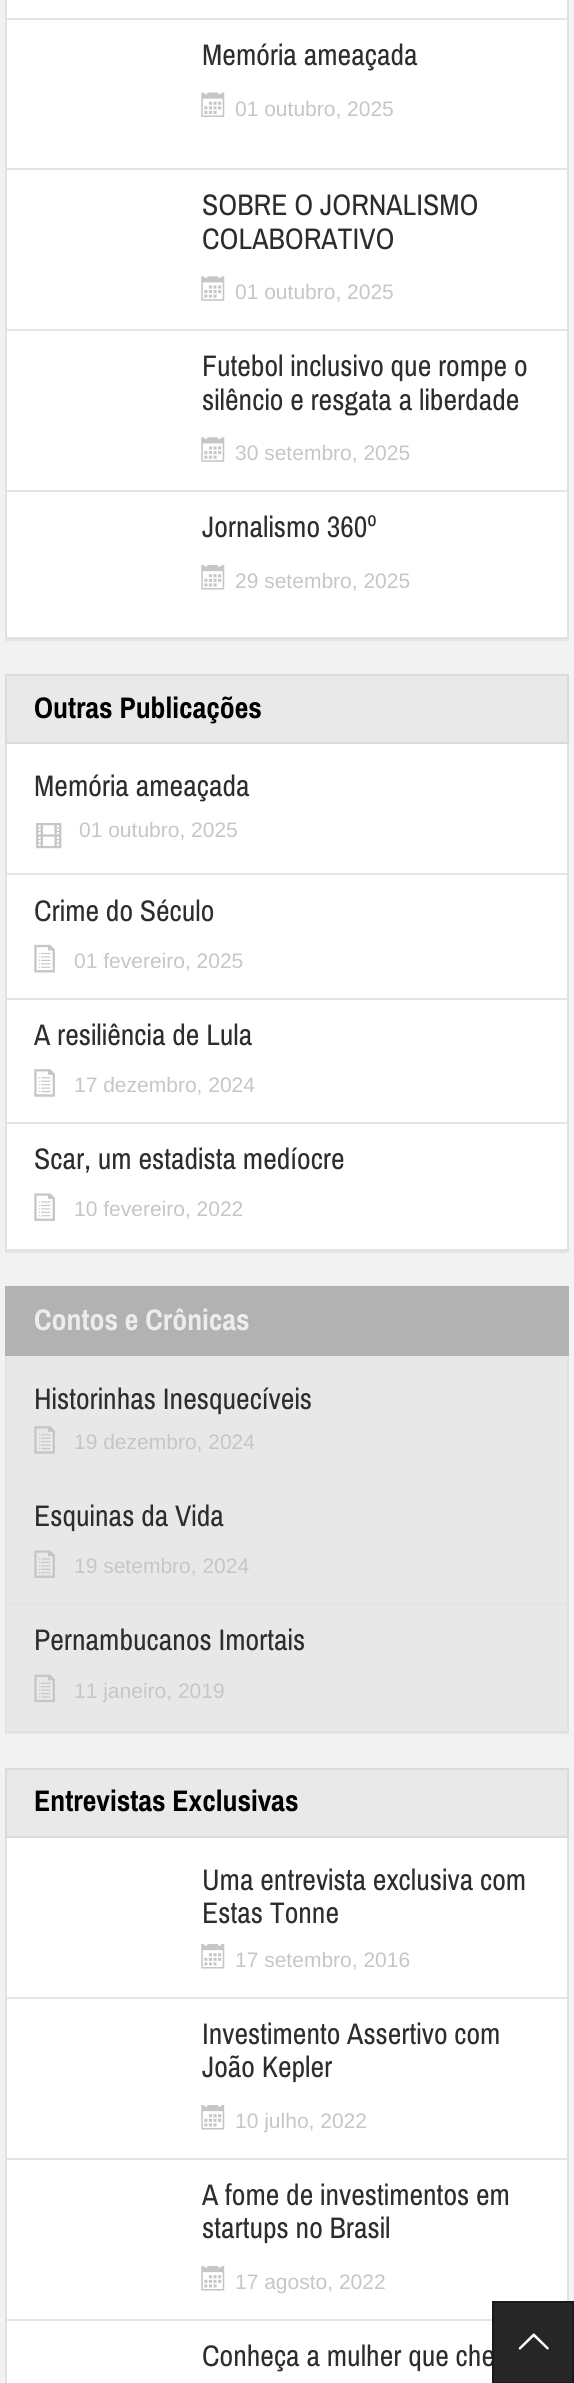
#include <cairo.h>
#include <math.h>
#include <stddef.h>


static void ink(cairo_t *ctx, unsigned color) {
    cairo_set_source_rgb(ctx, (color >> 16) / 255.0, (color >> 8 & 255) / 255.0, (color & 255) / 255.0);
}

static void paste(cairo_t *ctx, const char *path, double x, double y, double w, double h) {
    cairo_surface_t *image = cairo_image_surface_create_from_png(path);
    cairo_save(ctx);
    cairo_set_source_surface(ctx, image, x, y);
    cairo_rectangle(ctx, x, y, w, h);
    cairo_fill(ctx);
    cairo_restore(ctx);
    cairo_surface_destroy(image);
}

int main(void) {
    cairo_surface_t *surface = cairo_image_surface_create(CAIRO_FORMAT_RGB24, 574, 2383);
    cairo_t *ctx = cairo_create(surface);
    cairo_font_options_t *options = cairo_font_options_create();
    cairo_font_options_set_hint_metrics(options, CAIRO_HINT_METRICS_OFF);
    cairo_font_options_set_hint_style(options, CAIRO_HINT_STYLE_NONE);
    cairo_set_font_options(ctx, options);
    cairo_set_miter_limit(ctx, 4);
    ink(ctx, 0xF2F2F2);
    cairo_paint(ctx);
    ink(ctx, 0xE5E5E5);
    cairo_new_path(ctx);
    cairo_move_to(ctx, 5, -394);
    cairo_line_to(ctx, 5, 641);
    cairo_line_to(ctx, 569, 641);
    cairo_line_to(ctx, 569, -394);
    cairo_line_to(ctx, 569, 639);
    cairo_line_to(ctx, 5, 639);
    cairo_close_path(ctx);
    cairo_fill(ctx);
    ink(ctx, 0xFFFFFF);
    cairo_rectangle(ctx, 6, -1, 562, 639);
    cairo_fill_preserve(ctx);
    ink(ctx, 0xE1E1E1);
    cairo_stroke(ctx);
    ink(ctx, 0xE4E4E4);
    cairo_rectangle(ctx, 7, 18, 560, 2);
    cairo_fill(ctx);
    cairo_rectangle(ctx, 7, 168, 560, 2);
    cairo_fill(ctx);
    cairo_select_font_face(ctx, "Archivo Narrow", CAIRO_FONT_SLANT_NORMAL, CAIRO_FONT_WEIGHT_NORMAL);
    cairo_set_font_size(ctx, 29.75);
    ink(ctx, 0x2D2D2D);
    cairo_move_to(ctx, 202, 65);
    cairo_show_text(ctx, "Memória ameaçada");
    paste(ctx, "media/1.png", 201, 92, 24, 25);
    cairo_select_font_face(ctx, "Liberation Sans", CAIRO_FONT_SLANT_NORMAL, CAIRO_FONT_WEIGHT_NORMAL);
    cairo_set_font_size(ctx, 21);
    ink(ctx, 0xC6C6C6);
    cairo_move_to(ctx, 235, 116);
    cairo_show_text(ctx, "01 outubro, 2025");
    ink(ctx, 0xE4E4E4);
    cairo_rectangle(ctx, 7, 329, 560, 2);
    cairo_fill(ctx);
    cairo_select_font_face(ctx, "Archivo Narrow", CAIRO_FONT_SLANT_NORMAL, CAIRO_FONT_WEIGHT_NORMAL);
    cairo_set_font_size(ctx, 29.75);
    ink(ctx, 0x2D2D2D);
    cairo_move_to(ctx, 202, 215);
    cairo_show_text(ctx, "SOBRE O JORNALISMO");
    cairo_move_to(ctx, 202, 249);
    cairo_show_text(ctx, "COLABORATIVO");
    paste(ctx, "media/2.png", 201, 276, 24, 25);
    cairo_select_font_face(ctx, "Liberation Sans", CAIRO_FONT_SLANT_NORMAL, CAIRO_FONT_WEIGHT_NORMAL);
    cairo_set_font_size(ctx, 21);
    ink(ctx, 0xC6C6C6);
    cairo_move_to(ctx, 235, 299);
    cairo_show_text(ctx, "01 outubro, 2025");
    ink(ctx, 0xE4E4E4);
    cairo_rectangle(ctx, 7, 490, 560, 2);
    cairo_fill(ctx);
    cairo_select_font_face(ctx, "Archivo Narrow", CAIRO_FONT_SLANT_NORMAL, CAIRO_FONT_WEIGHT_NORMAL);
    cairo_set_font_size(ctx, 29.75);
    ink(ctx, 0x2D2D2D);
    cairo_move_to(ctx, 202, 376);
    cairo_show_text(ctx, "Futebol inclusivo que rompe o");
    cairo_move_to(ctx, 202, 410);
    cairo_show_text(ctx, "silêncio e resgata a liberdade");
    paste(ctx, "media/2.png", 201, 437, 24, 25);
    cairo_select_font_face(ctx, "Liberation Sans", CAIRO_FONT_SLANT_NORMAL, CAIRO_FONT_WEIGHT_NORMAL);
    cairo_set_font_size(ctx, 21);
    ink(ctx, 0xC6C6C6);
    cairo_move_to(ctx, 235, 460);
    cairo_show_text(ctx, "30 setembro, 2025");
    cairo_select_font_face(ctx, "Archivo Narrow", CAIRO_FONT_SLANT_NORMAL, CAIRO_FONT_WEIGHT_NORMAL);
    cairo_set_font_size(ctx, 29.75);
    ink(ctx, 0x2D2D2D);
    cairo_move_to(ctx, 202, 537);
    cairo_show_text(ctx, "Jornalismo 360º");
    paste(ctx, "media/3.png", 201, 565, 24, 25);
    cairo_select_font_face(ctx, "Liberation Sans", CAIRO_FONT_SLANT_NORMAL, CAIRO_FONT_WEIGHT_NORMAL);
    cairo_set_font_size(ctx, 21);
    ink(ctx, 0xC6C6C6);
    cairo_move_to(ctx, 235, 588);
    cairo_show_text(ctx, "29 setembro, 2025");
    ink(ctx, 0xE5E5E5);
    cairo_new_path(ctx);
    cairo_move_to(ctx, 5, 676);
    cairo_line_to(ctx, 5, 1253);
    cairo_line_to(ctx, 569, 1253);
    cairo_line_to(ctx, 569, 676);
    cairo_line_to(ctx, 569, 1251);
    cairo_line_to(ctx, 5, 1251);
    cairo_close_path(ctx);
    cairo_fill(ctx);
    ink(ctx, 0xFFFFFF);
    cairo_rectangle(ctx, 7, 744, 560, 505);
    cairo_fill(ctx);
    cairo_rectangle(ctx, 6, 675, 562, 575);
    ink(ctx, 0xE1E1E1);
    cairo_stroke(ctx);
    ink(ctx, 0xE9E9E9);
    cairo_rectangle(ctx, 6, 675, 562, 68);
    cairo_fill_preserve(ctx);
    ink(ctx, 0xDBDBDB);
    cairo_stroke(ctx);
    cairo_select_font_face(ctx, "Archivo Narrow", CAIRO_FONT_SLANT_NORMAL, CAIRO_FONT_WEIGHT_BOLD);
    cairo_set_font_size(ctx, 29.75);
    ink(ctx, 0x000000);
    cairo_move_to(ctx, 34, 718);
    cairo_show_text(ctx, "Outras Publicações");
    ink(ctx, 0xE4E4E4);
    cairo_rectangle(ctx, 7, 873, 560, 2);
    cairo_fill(ctx);
    cairo_select_font_face(ctx, "Archivo Narrow", CAIRO_FONT_SLANT_NORMAL, CAIRO_FONT_WEIGHT_NORMAL);
    ink(ctx, 0x2D2D2D);
    cairo_move_to(ctx, 34, 796);
    cairo_show_text(ctx, "Memória ameaçada");
    paste(ctx, "media/4.png", 36, 823, 26, 26);
    cairo_select_font_face(ctx, "Liberation Sans", CAIRO_FONT_SLANT_NORMAL, CAIRO_FONT_WEIGHT_NORMAL);
    cairo_set_font_size(ctx, 21);
    ink(ctx, 0xC6C6C6);
    cairo_move_to(ctx, 79, 837);
    cairo_show_text(ctx, "01 outubro, 2025");
    ink(ctx, 0xE4E4E4);
    cairo_rectangle(ctx, 7, 998, 560, 2);
    cairo_fill(ctx);
    cairo_select_font_face(ctx, "Archivo Narrow", CAIRO_FONT_SLANT_NORMAL, CAIRO_FONT_WEIGHT_NORMAL);
    cairo_set_font_size(ctx, 29.75);
    ink(ctx, 0x2D2D2D);
    cairo_move_to(ctx, 34, 921);
    cairo_show_text(ctx, "Crime do Século");
    paste(ctx, "media/5.png", 34, 944, 21, 29);
    cairo_select_font_face(ctx, "Liberation Sans", CAIRO_FONT_SLANT_NORMAL, CAIRO_FONT_WEIGHT_NORMAL);
    cairo_set_font_size(ctx, 21);
    ink(ctx, 0xC6C6C6);
    cairo_move_to(ctx, 74, 968);
    cairo_show_text(ctx, "01 fevereiro, 2025");
    ink(ctx, 0xE4E4E4);
    cairo_rectangle(ctx, 7, 1122, 560, 2);
    cairo_fill(ctx);
    cairo_select_font_face(ctx, "Archivo Narrow", CAIRO_FONT_SLANT_NORMAL, CAIRO_FONT_WEIGHT_NORMAL);
    cairo_set_font_size(ctx, 29.75);
    ink(ctx, 0x2D2D2D);
    cairo_move_to(ctx, 34, 1045);
    cairo_show_text(ctx, "A resiliência de Lula");
    paste(ctx, "media/6.png", 34, 1069, 21, 28);
    cairo_select_font_face(ctx, "Liberation Sans", CAIRO_FONT_SLANT_NORMAL, CAIRO_FONT_WEIGHT_NORMAL);
    cairo_set_font_size(ctx, 21);
    ink(ctx, 0xC6C6C6);
    cairo_move_to(ctx, 74, 1092);
    cairo_show_text(ctx, "17 dezembro, 2024");
    cairo_select_font_face(ctx, "Archivo Narrow", CAIRO_FONT_SLANT_NORMAL, CAIRO_FONT_WEIGHT_NORMAL);
    cairo_set_font_size(ctx, 29.75);
    ink(ctx, 0x2D2D2D);
    cairo_move_to(ctx, 34, 1169);
    cairo_show_text(ctx, "Scar, um estadista medíocre");
    paste(ctx, "media/7.png", 34, 1193, 21, 28);
    cairo_select_font_face(ctx, "Liberation Sans", CAIRO_FONT_SLANT_NORMAL, CAIRO_FONT_WEIGHT_NORMAL);
    cairo_set_font_size(ctx, 21);
    ink(ctx, 0xC6C6C6);
    cairo_move_to(ctx, 74, 1216);
    cairo_show_text(ctx, "10 fevereiro, 2022");
    ink(ctx, 0xE5E5E5);
    cairo_new_path(ctx);
    cairo_move_to(ctx, 5, 1288);
    cairo_line_to(ctx, 5, 1734);
    cairo_line_to(ctx, 569, 1734);
    cairo_line_to(ctx, 569, 1288);
    cairo_line_to(ctx, 569, 1732);
    cairo_line_to(ctx, 5, 1732);
    cairo_close_path(ctx);
    cairo_fill(ctx);
    ink(ctx, 0xE8E8E8);
    cairo_rectangle(ctx, 7, 1356, 560, 375);
    cairo_fill(ctx);
    cairo_rectangle(ctx, 6, 1287, 562, 445);
    ink(ctx, 0xE1E1E1);
    cairo_stroke(ctx);
    ink(ctx, 0xB2B2B2);
    cairo_rectangle(ctx, 5, 1286, 564, 70);
    cairo_fill(ctx);
    cairo_select_font_face(ctx, "Archivo Narrow", CAIRO_FONT_SLANT_NORMAL, CAIRO_FONT_WEIGHT_BOLD);
    cairo_set_font_size(ctx, 29.75);
    ink(ctx, 0xEDEDED);
    cairo_move_to(ctx, 34, 1330);
    cairo_show_text(ctx, "Contos e Crônicas");
    ink(ctx, 0xE4E4E4);
    cairo_rectangle(ctx, 7, 1479, 560, 2);
    cairo_fill(ctx);
    cairo_select_font_face(ctx, "Archivo Narrow", CAIRO_FONT_SLANT_NORMAL, CAIRO_FONT_WEIGHT_NORMAL);
    ink(ctx, 0x2D2D2D);
    cairo_move_to(ctx, 34, 1409);
    cairo_show_text(ctx, "Historinhas Inesquecíveis");
    paste(ctx, "media/8.png", 34, 1426, 21, 28);
    cairo_select_font_face(ctx, "Liberation Sans", CAIRO_FONT_SLANT_NORMAL, CAIRO_FONT_WEIGHT_NORMAL);
    cairo_set_font_size(ctx, 21);
    ink(ctx, 0xC6C6C6);
    cairo_move_to(ctx, 74, 1449);
    cairo_show_text(ctx, "19 dezembro, 2024");
    ink(ctx, 0xE4E4E4);
    cairo_rectangle(ctx, 7, 1603, 560, 2);
    cairo_fill(ctx);
    cairo_select_font_face(ctx, "Archivo Narrow", CAIRO_FONT_SLANT_NORMAL, CAIRO_FONT_WEIGHT_NORMAL);
    cairo_set_font_size(ctx, 29.75);
    ink(ctx, 0x2D2D2D);
    cairo_move_to(ctx, 34, 1526);
    cairo_show_text(ctx, "Esquinas da Vida");
    paste(ctx, "media/9.png", 34, 1550, 21, 28);
    cairo_select_font_face(ctx, "Liberation Sans", CAIRO_FONT_SLANT_NORMAL, CAIRO_FONT_WEIGHT_NORMAL);
    cairo_set_font_size(ctx, 21);
    ink(ctx, 0xC6C6C6);
    cairo_move_to(ctx, 74, 1573);
    cairo_show_text(ctx, "19 setembro, 2024");
    cairo_select_font_face(ctx, "Archivo Narrow", CAIRO_FONT_SLANT_NORMAL, CAIRO_FONT_WEIGHT_NORMAL);
    cairo_set_font_size(ctx, 29.75);
    ink(ctx, 0x2D2D2D);
    cairo_move_to(ctx, 34, 1650);
    cairo_show_text(ctx, "Pernambucanos Imortais");
    paste(ctx, "media/10.png", 34, 1674, 21, 29);
    cairo_select_font_face(ctx, "Liberation Sans", CAIRO_FONT_SLANT_NORMAL, CAIRO_FONT_WEIGHT_NORMAL);
    cairo_set_font_size(ctx, 21);
    ink(ctx, 0xC6C6C6);
    cairo_move_to(ctx, 74, 1698);
    cairo_show_text(ctx, "11 janeiro, 2019");
    ink(ctx, 0xFFFFFF);
    cairo_rectangle(ctx, 7, 1838, 560, 545);
    cairo_fill(ctx);
    cairo_rectangle(ctx, 6, 1769, 562, 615);
    ink(ctx, 0xE1E1E1);
    cairo_stroke(ctx);
    ink(ctx, 0xE9E9E9);
    cairo_rectangle(ctx, 6, 1769, 562, 68);
    cairo_fill_preserve(ctx);
    ink(ctx, 0xDBDBDB);
    cairo_stroke(ctx);
    cairo_select_font_face(ctx, "Archivo Narrow", CAIRO_FONT_SLANT_NORMAL, CAIRO_FONT_WEIGHT_BOLD);
    cairo_set_font_size(ctx, 29.75);
    ink(ctx, 0x000000);
    cairo_move_to(ctx, 34, 1811);
    cairo_show_text(ctx, "Entrevistas Exclusivas");
    ink(ctx, 0xE4E4E4);
    cairo_rectangle(ctx, 7, 1997, 560, 2);
    cairo_fill(ctx);
    cairo_select_font_face(ctx, "Archivo Narrow", CAIRO_FONT_SLANT_NORMAL, CAIRO_FONT_WEIGHT_NORMAL);
    ink(ctx, 0x2D2D2D);
    cairo_move_to(ctx, 202, 1890);
    cairo_show_text(ctx, "Uma entrevista exclusiva com");
    cairo_move_to(ctx, 202, 1923);
    cairo_show_text(ctx, "Estas Tonne");
    paste(ctx, "media/3.png", 201, 1944, 24, 25);
    cairo_select_font_face(ctx, "Liberation Sans", CAIRO_FONT_SLANT_NORMAL, CAIRO_FONT_WEIGHT_NORMAL);
    cairo_set_font_size(ctx, 21);
    ink(ctx, 0xC6C6C6);
    cairo_move_to(ctx, 235, 1967);
    cairo_show_text(ctx, "17 setembro, 2016");
    ink(ctx, 0xE4E4E4);
    cairo_rectangle(ctx, 7, 2158, 560, 2);
    cairo_fill(ctx);
    cairo_select_font_face(ctx, "Archivo Narrow", CAIRO_FONT_SLANT_NORMAL, CAIRO_FONT_WEIGHT_NORMAL);
    cairo_set_font_size(ctx, 29.75);
    ink(ctx, 0x2D2D2D);
    cairo_move_to(ctx, 202, 2044);
    cairo_show_text(ctx, "Investimento Assertivo com");
    cairo_move_to(ctx, 202, 2077);
    cairo_show_text(ctx, "João Kepler");
    paste(ctx, "media/3.png", 201, 2105, 24, 25);
    cairo_select_font_face(ctx, "Liberation Sans", CAIRO_FONT_SLANT_NORMAL, CAIRO_FONT_WEIGHT_NORMAL);
    cairo_set_font_size(ctx, 21);
    ink(ctx, 0xC6C6C6);
    cairo_move_to(ctx, 235, 2128);
    cairo_show_text(ctx, "10 julho, 2022");
    ink(ctx, 0xE4E4E4);
    cairo_rectangle(ctx, 7, 2319, 485, 2);
    cairo_fill(ctx);
    cairo_select_font_face(ctx, "Archivo Narrow", CAIRO_FONT_SLANT_NORMAL, CAIRO_FONT_WEIGHT_NORMAL);
    cairo_set_font_size(ctx, 29.75);
    ink(ctx, 0x2D2D2D);
    cairo_move_to(ctx, 202, 2205);
    cairo_show_text(ctx, "A fome de investimentos em");
    cairo_move_to(ctx, 202, 2238);
    cairo_show_text(ctx, "startups no Brasil");
    paste(ctx, "media/3.png", 201, 2266, 24, 25);
    cairo_select_font_face(ctx, "Liberation Sans", CAIRO_FONT_SLANT_NORMAL, CAIRO_FONT_WEIGHT_NORMAL);
    cairo_set_font_size(ctx, 21);
    ink(ctx, 0xC6C6C6);
    cairo_move_to(ctx, 235, 2289);
    cairo_show_text(ctx, "17 agosto, 2022");
    cairo_select_font_face(ctx, "Archivo Narrow", CAIRO_FONT_SLANT_NORMAL, CAIRO_FONT_WEIGHT_NORMAL);
    cairo_set_font_size(ctx, 29.75);
    ink(ctx, 0x2D2D2D);
    cairo_move_to(ctx, 202, 2366);
    cairo_show_text(ctx, "Conheça a mulher que che");
    ink(ctx, 0x262626);
    cairo_rectangle(ctx, 493, 2302, 80, 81);
    cairo_fill_preserve(ctx);
    ink(ctx, 0x1A1A1A);
    cairo_stroke(ctx);
    paste(ctx, "media/11.png", 518, 2333, 31, 17);
    cairo_surface_write_to_png(surface, "image.png");
    cairo_font_options_destroy(options);
    cairo_destroy(ctx);
    cairo_surface_destroy(surface);
    return 0;
}
